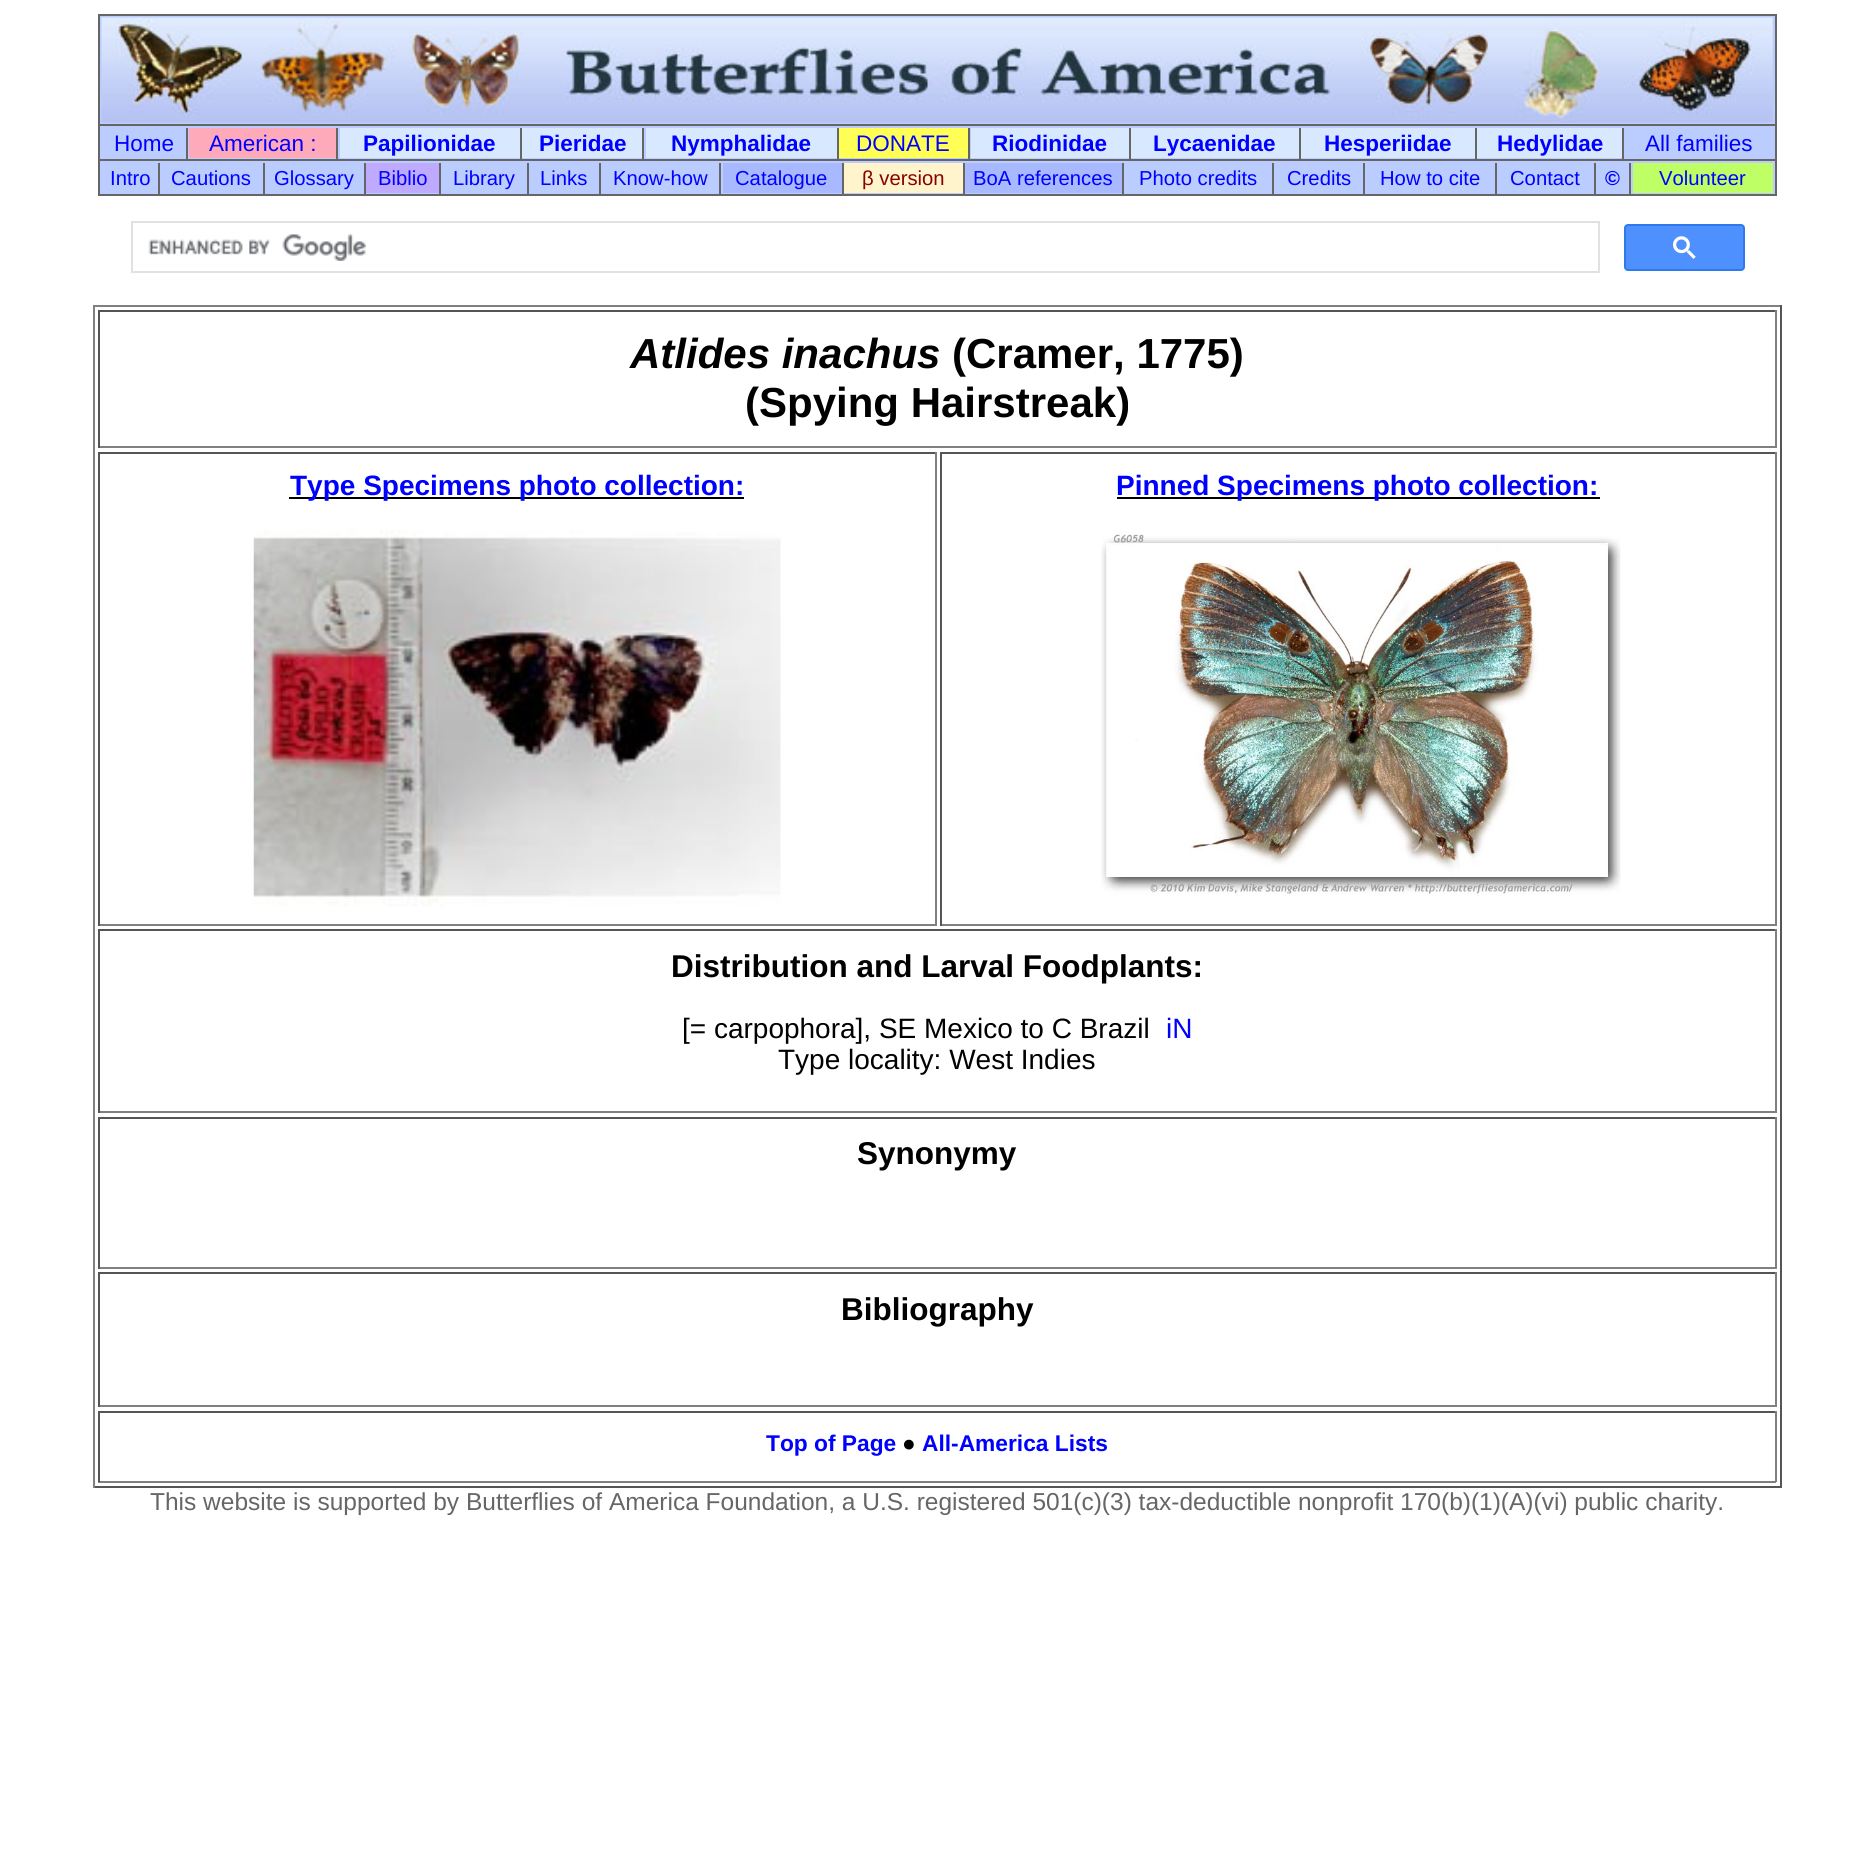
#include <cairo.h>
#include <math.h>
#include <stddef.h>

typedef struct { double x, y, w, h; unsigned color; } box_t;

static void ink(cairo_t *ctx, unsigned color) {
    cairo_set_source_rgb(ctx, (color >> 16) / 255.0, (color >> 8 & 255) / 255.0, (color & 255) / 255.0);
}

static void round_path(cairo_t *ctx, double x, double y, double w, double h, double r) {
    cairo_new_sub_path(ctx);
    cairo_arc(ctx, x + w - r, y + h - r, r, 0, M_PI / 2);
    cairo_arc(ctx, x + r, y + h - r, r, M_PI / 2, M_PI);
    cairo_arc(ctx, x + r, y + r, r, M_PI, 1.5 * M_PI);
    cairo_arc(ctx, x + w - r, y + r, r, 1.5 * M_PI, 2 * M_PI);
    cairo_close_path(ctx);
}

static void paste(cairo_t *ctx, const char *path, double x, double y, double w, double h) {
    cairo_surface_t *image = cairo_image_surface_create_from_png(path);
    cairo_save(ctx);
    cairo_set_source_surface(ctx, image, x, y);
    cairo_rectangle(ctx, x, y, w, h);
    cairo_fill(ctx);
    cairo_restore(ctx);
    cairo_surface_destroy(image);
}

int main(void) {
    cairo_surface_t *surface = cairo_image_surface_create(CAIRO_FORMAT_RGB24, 1873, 1869);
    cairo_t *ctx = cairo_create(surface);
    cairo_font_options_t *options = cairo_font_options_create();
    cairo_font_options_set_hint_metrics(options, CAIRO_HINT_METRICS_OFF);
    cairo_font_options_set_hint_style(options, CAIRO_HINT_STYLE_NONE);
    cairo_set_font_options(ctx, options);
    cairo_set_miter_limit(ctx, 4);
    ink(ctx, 0xFFFFFF);
    cairo_paint(ctx);
    {
        static const box_t items[] = {
            {100, 16, 1675, 178, 0xBBCCFF},
            {98, 14, 1678, 2, 0x666666},
            {1775, 14, 2, 182, 0x666666},
            {98, 194, 1678, 2, 0x666666},
            {98, 14, 2, 182, 0x666666},
        };
        for (size_t i = 0; i < sizeof items / sizeof *items; i++) {
            ink(ctx, items[i].color);
            cairo_rectangle(ctx, items[i].x, items[i].y, items[i].w, items[i].h);
            cairo_fill(ctx);
        }
    }
    paste(ctx, "media/1.png", 101, 17, 1672, 106);
    cairo_rectangle(ctx, 98, 124, 1678, 2);
    cairo_fill(ctx);
    cairo_select_font_face(ctx, "Liberation Sans", CAIRO_FONT_SLANT_NORMAL, CAIRO_FONT_WEIGHT_NORMAL);
    cairo_set_font_size(ctx, 22.5);
    ink(ctx, 0x0000FF);
    cairo_move_to(ctx, 114, 151);
    cairo_show_text(ctx, "Home");
    ink(ctx, 0xFFAABB);
    cairo_rectangle(ctx, 189, 128, 147, 30);
    cairo_fill(ctx);
    ink(ctx, 0x666666);
    cairo_rectangle(ctx, 186, 128, 2, 31);
    cairo_fill(ctx);
    ink(ctx, 0x0000FF);
    cairo_move_to(ctx, 209, 151);
    cairo_show_text(ctx, "American :");
    ink(ctx, 0xD8E8FF);
    cairo_rectangle(ctx, 340, 128, 180, 30);
    cairo_fill(ctx);
    ink(ctx, 0x666666);
    cairo_rectangle(ctx, 336, 128, 2, 31);
    cairo_fill(ctx);
    cairo_select_font_face(ctx, "Liberation Sans", CAIRO_FONT_SLANT_NORMAL, CAIRO_FONT_WEIGHT_BOLD);
    ink(ctx, 0x0000FF);
    cairo_move_to(ctx, 363, 151);
    cairo_show_text(ctx, "Papilionidae");
    ink(ctx, 0xD8E8FF);
    cairo_rectangle(ctx, 522, 128, 120, 30);
    cairo_fill(ctx);
    ink(ctx, 0x666666);
    cairo_rectangle(ctx, 520, 128, 2, 31);
    cairo_fill(ctx);
    ink(ctx, 0x0000FF);
    cairo_move_to(ctx, 539, 151);
    cairo_show_text(ctx, "Pieridae");
    ink(ctx, 0xD8E8FF);
    cairo_rectangle(ctx, 646, 128, 191, 30);
    cairo_fill(ctx);
    ink(ctx, 0x666666);
    cairo_rectangle(ctx, 642, 128, 2, 31);
    cairo_fill(ctx);
    ink(ctx, 0x0000FF);
    cairo_move_to(ctx, 671, 151);
    cairo_show_text(ctx, "Nymphalidae");
    ink(ctx, 0xFFFF55);
    cairo_rectangle(ctx, 839, 128, 129, 30);
    cairo_fill(ctx);
    ink(ctx, 0x666666);
    cairo_rectangle(ctx, 837, 128, 2, 31);
    cairo_fill(ctx);
    cairo_select_font_face(ctx, "Liberation Sans", CAIRO_FONT_SLANT_NORMAL, CAIRO_FONT_WEIGHT_NORMAL);
    ink(ctx, 0x0000FF);
    cairo_move_to(ctx, 856, 151);
    cairo_show_text(ctx, "DONATE");
    ink(ctx, 0xD8E8FF);
    cairo_rectangle(ctx, 971, 128, 158, 30);
    cairo_fill(ctx);
    ink(ctx, 0x666666);
    cairo_rectangle(ctx, 968, 128, 2, 31);
    cairo_fill(ctx);
    cairo_select_font_face(ctx, "Liberation Sans", CAIRO_FONT_SLANT_NORMAL, CAIRO_FONT_WEIGHT_BOLD);
    ink(ctx, 0x0000FF);
    cairo_move_to(ctx, 992, 151);
    cairo_show_text(ctx, "Riodinidae");
    ink(ctx, 0xD8E8FF);
    cairo_rectangle(ctx, 1131, 128, 168, 30);
    cairo_fill(ctx);
    ink(ctx, 0x666666);
    cairo_rectangle(ctx, 1129, 128, 2, 31);
    cairo_fill(ctx);
    ink(ctx, 0x0000FF);
    cairo_move_to(ctx, 1153, 151);
    cairo_show_text(ctx, "Lycaenidae");
    ink(ctx, 0xD8E8FF);
    cairo_rectangle(ctx, 1301, 128, 174, 30);
    cairo_fill(ctx);
    ink(ctx, 0x666666);
    cairo_rectangle(ctx, 1299, 128, 2, 31);
    cairo_fill(ctx);
    ink(ctx, 0x0000FF);
    cairo_move_to(ctx, 1324, 151);
    cairo_show_text(ctx, "Hesperiidae");
    ink(ctx, 0xD8E8FF);
    cairo_rectangle(ctx, 1477, 128, 145, 30);
    cairo_fill(ctx);
    ink(ctx, 0x666666);
    cairo_rectangle(ctx, 1475, 128, 2, 31);
    cairo_fill(ctx);
    ink(ctx, 0x0000FF);
    cairo_move_to(ctx, 1497, 151);
    cairo_show_text(ctx, "Hedylidae");
    ink(ctx, 0x666666);
    cairo_rectangle(ctx, 1622, 128, 2, 31);
    cairo_fill(ctx);
    cairo_select_font_face(ctx, "Liberation Sans", CAIRO_FONT_SLANT_NORMAL, CAIRO_FONT_WEIGHT_NORMAL);
    ink(ctx, 0x0000FF);
    cairo_move_to(ctx, 1645, 151);
    cairo_show_text(ctx, "All families");
    ink(ctx, 0x666666);
    cairo_rectangle(ctx, 98, 159, 1678, 2);
    cairo_fill(ctx);
    cairo_set_font_size(ctx, 20.25);
    ink(ctx, 0x0000FF);
    cairo_move_to(ctx, 110, 185);
    cairo_show_text(ctx, "Intro");
    ink(ctx, 0x666666);
    cairo_rectangle(ctx, 158, 163, 2, 31);
    cairo_fill(ctx);
    ink(ctx, 0x0000FF);
    cairo_move_to(ctx, 171, 185);
    cairo_show_text(ctx, "Cautions");
    ink(ctx, 0x666666);
    cairo_rectangle(ctx, 263, 163, 2, 31);
    cairo_fill(ctx);
    ink(ctx, 0x0000FF);
    cairo_move_to(ctx, 274, 185);
    cairo_show_text(ctx, "Glossary");
    ink(ctx, 0xBEAAFF);
    cairo_rectangle(ctx, 366, 163, 73, 30);
    cairo_fill(ctx);
    ink(ctx, 0x666666);
    cairo_rectangle(ctx, 364, 163, 2, 31);
    cairo_fill(ctx);
    ink(ctx, 0x0000FF);
    cairo_move_to(ctx, 378, 185);
    cairo_show_text(ctx, "Biblio");
    ink(ctx, 0x666666);
    cairo_rectangle(ctx, 439, 163, 2, 31);
    cairo_fill(ctx);
    ink(ctx, 0x0000FF);
    cairo_move_to(ctx, 453, 185);
    cairo_show_text(ctx, "Library");
    ink(ctx, 0x666666);
    cairo_rectangle(ctx, 527, 163, 2, 31);
    cairo_fill(ctx);
    ink(ctx, 0x0000FF);
    cairo_move_to(ctx, 540, 185);
    cairo_show_text(ctx, "Links");
    ink(ctx, 0x666666);
    cairo_rectangle(ctx, 599, 163, 2, 31);
    cairo_fill(ctx);
    ink(ctx, 0x0000FF);
    cairo_move_to(ctx, 613, 185);
    cairo_show_text(ctx, "Know-how");
    ink(ctx, 0xA8B9FF);
    cairo_rectangle(ctx, 723, 163, 119, 30);
    cairo_fill(ctx);
    ink(ctx, 0x666666);
    cairo_rectangle(ctx, 719, 163, 2, 31);
    cairo_fill(ctx);
    ink(ctx, 0x0000FF);
    cairo_move_to(ctx, 735, 185);
    cairo_show_text(ctx, "Catalogue");
    ink(ctx, 0xFFF4CC);
    cairo_rectangle(ctx, 844, 163, 119, 30);
    cairo_fill(ctx);
    ink(ctx, 0x666666);
    cairo_rectangle(ctx, 842, 163, 2, 31);
    cairo_fill(ctx);
    ink(ctx, 0x880000);
    cairo_move_to(ctx, 862, 185);
    cairo_show_text(ctx, "β version");
    ink(ctx, 0xA8B9FF);
    cairo_rectangle(ctx, 965, 163, 157, 30);
    cairo_fill(ctx);
    ink(ctx, 0x666666);
    cairo_rectangle(ctx, 963, 163, 2, 31);
    cairo_fill(ctx);
    ink(ctx, 0x0000FF);
    cairo_move_to(ctx, 973, 185);
    cairo_show_text(ctx, "BoA references");
    ink(ctx, 0x666666);
    cairo_rectangle(ctx, 1122, 163, 2, 31);
    cairo_fill(ctx);
    ink(ctx, 0x0000FF);
    cairo_move_to(ctx, 1139, 185);
    cairo_show_text(ctx, "Photo credits");
    ink(ctx, 0x666666);
    cairo_rectangle(ctx, 1272, 163, 2, 31);
    cairo_fill(ctx);
    ink(ctx, 0x0000FF);
    cairo_move_to(ctx, 1287, 185);
    cairo_show_text(ctx, "Credits");
    ink(ctx, 0x666666);
    cairo_rectangle(ctx, 1363, 163, 2, 31);
    cairo_fill(ctx);
    ink(ctx, 0x0000FF);
    cairo_move_to(ctx, 1380, 185);
    cairo_show_text(ctx, "How to cite");
    ink(ctx, 0x666666);
    cairo_rectangle(ctx, 1495, 163, 2, 31);
    cairo_fill(ctx);
    ink(ctx, 0x0000FF);
    cairo_move_to(ctx, 1510, 185);
    cairo_show_text(ctx, "Contact");
    ink(ctx, 0x666666);
    cairo_rectangle(ctx, 1594, 163, 2, 31);
    cairo_fill(ctx);
    cairo_select_font_face(ctx, "Liberation Sans", CAIRO_FONT_SLANT_NORMAL, CAIRO_FONT_WEIGHT_BOLD);
    ink(ctx, 0x0000FF);
    cairo_move_to(ctx, 1605, 185);
    cairo_show_text(ctx, "©");
    ink(ctx, 0xBEFF66);
    cairo_rectangle(ctx, 1633, 163, 140, 30);
    cairo_fill(ctx);
    ink(ctx, 0x666666);
    cairo_rectangle(ctx, 1629, 163, 2, 31);
    cairo_fill(ctx);
    cairo_select_font_face(ctx, "Liberation Sans", CAIRO_FONT_SLANT_NORMAL, CAIRO_FONT_WEIGHT_NORMAL);
    ink(ctx, 0x0000FF);
    cairo_move_to(ctx, 1659, 185);
    cairo_show_text(ctx, "Volunteer");
    cairo_rectangle(ctx, 132, 222, 1467, 50);
    ink(ctx, 0xDFE1E5);
    cairo_stroke(ctx);
    paste(ctx, "media/2.png", 148, 234, 218, 27);
    ink(ctx, 0x4D90FE);
    round_path(ctx, 1625, 225, 119, 45, 3);
    cairo_fill_preserve(ctx);
    ink(ctx, 0x3079ED);
    cairo_stroke(ctx);
    paste(ctx, "media/3.png", 1673, 236, 23, 23);
    {
        static const box_t items[] = {
            {93, 305, 1689, 2, 0x808080},
            {1780, 305, 2, 1183, 0x555555},
            {93, 1486, 1689, 2, 0x555555},
            {93, 305, 2, 1183, 0x808080},
            {98, 310, 1678, 2, 0x555555},
            {1775, 310, 2, 138, 0x808080},
            {98, 446, 1678, 2, 0x808080},
            {98, 310, 2, 138, 0x555555},
        };
        for (size_t i = 0; i < sizeof items / sizeof *items; i++) {
            ink(ctx, items[i].color);
            cairo_rectangle(ctx, items[i].x, items[i].y, items[i].w, items[i].h);
            cairo_fill(ctx);
        }
    }
    cairo_select_font_face(ctx, "Liberation Sans", CAIRO_FONT_SLANT_ITALIC, CAIRO_FONT_WEIGHT_BOLD);
    cairo_set_font_size(ctx, 42);
    ink(ctx, 0x000000);
    cairo_move_to(ctx, 630, 368);
    cairo_show_text(ctx, "Atlides inachus");
    cairo_select_font_face(ctx, "Liberation Sans", CAIRO_FONT_SLANT_NORMAL, CAIRO_FONT_WEIGHT_BOLD);
    cairo_move_to(ctx, 952, 368);
    cairo_show_text(ctx, "(Cramer, 1775)");
    cairo_move_to(ctx, 745, 417);
    cairo_show_text(ctx, "(Spying Hairstreak)");
    {
        static const box_t items[] = {
            {98, 452, 838, 2, 0x555555},
            {935, 452, 2, 474, 0x808080},
            {98, 924, 838, 2, 0x808080},
            {98, 452, 2, 474, 0x555555},
            {289, 497, 455, 2, 0x000000},
        };
        for (size_t i = 0; i < sizeof items / sizeof *items; i++) {
            ink(ctx, items[i].color);
            cairo_rectangle(ctx, items[i].x, items[i].y, items[i].w, items[i].h);
            cairo_fill(ctx);
        }
    }
    cairo_set_font_size(ctx, 28);
    ink(ctx, 0x0000FF);
    cairo_move_to(ctx, 290, 495);
    cairo_show_text(ctx, "Type Specimens photo collection:");
    paste(ctx, "media/4.png", 253, 530, 528, 377);
    {
        static const box_t items[] = {
            {940, 452, 836, 2, 0x555555},
            {1775, 452, 2, 474, 0x808080},
            {940, 924, 836, 2, 0x808080},
            {940, 452, 2, 474, 0x555555},
            {1117, 497, 483, 2, 0x000000},
        };
        for (size_t i = 0; i < sizeof items / sizeof *items; i++) {
            ink(ctx, items[i].color);
            cairo_rectangle(ctx, items[i].x, items[i].y, items[i].w, items[i].h);
            cairo_fill(ctx);
        }
    }
    ink(ctx, 0x0000FF);
    cairo_move_to(ctx, 1116, 495);
    cairo_show_text(ctx, "Pinned Specimens photo collection:");
    paste(ctx, "media/5.png", 1101, 531, 520, 365);
    {
        static const box_t items[] = {
            {98, 929, 1678, 2, 0x555555},
            {1775, 929, 2, 184, 0x808080},
            {98, 1111, 1678, 2, 0x808080},
            {98, 929, 2, 184, 0x555555},
        };
        for (size_t i = 0; i < sizeof items / sizeof *items; i++) {
            ink(ctx, items[i].color);
            cairo_rectangle(ctx, items[i].x, items[i].y, items[i].w, items[i].h);
            cairo_fill(ctx);
        }
    }
    cairo_set_font_size(ctx, 31.5);
    ink(ctx, 0x000000);
    cairo_move_to(ctx, 671, 977);
    cairo_show_text(ctx, "Distribution and Larval Foodplants:");
    cairo_select_font_face(ctx, "Liberation Sans", CAIRO_FONT_SLANT_NORMAL, CAIRO_FONT_WEIGHT_NORMAL);
    cairo_set_font_size(ctx, 28);
    cairo_move_to(ctx, 682, 1038);
    cairo_show_text(ctx, "[= carpophora], SE Mexico to C Brazil");
    ink(ctx, 0x0000FF);
    cairo_move_to(ctx, 1166, 1038);
    cairo_show_text(ctx, "iN");
    ink(ctx, 0x000000);
    cairo_move_to(ctx, 778, 1069);
    cairo_show_text(ctx, "Type locality: West Indies");
    {
        static const box_t items[] = {
            {98, 1117, 1678, 2, 0x555555},
            {1775, 1117, 2, 152, 0x808080},
            {98, 1267, 1678, 2, 0x808080},
            {98, 1117, 2, 152, 0x555555},
        };
        for (size_t i = 0; i < sizeof items / sizeof *items; i++) {
            ink(ctx, items[i].color);
            cairo_rectangle(ctx, items[i].x, items[i].y, items[i].w, items[i].h);
            cairo_fill(ctx);
        }
    }
    cairo_select_font_face(ctx, "Liberation Sans", CAIRO_FONT_SLANT_NORMAL, CAIRO_FONT_WEIGHT_BOLD);
    cairo_set_font_size(ctx, 31.5);
    ink(ctx, 0x000000);
    cairo_move_to(ctx, 857, 1164);
    cairo_show_text(ctx, "Synonymy");
    {
        static const box_t items[] = {
            {98, 1272, 1678, 2, 0x555555},
            {1775, 1272, 2, 135, 0x808080},
            {98, 1405, 1678, 2, 0x808080},
            {98, 1272, 2, 135, 0x555555},
        };
        for (size_t i = 0; i < sizeof items / sizeof *items; i++) {
            ink(ctx, items[i].color);
            cairo_rectangle(ctx, items[i].x, items[i].y, items[i].w, items[i].h);
            cairo_fill(ctx);
        }
    }
    ink(ctx, 0x000000);
    cairo_move_to(ctx, 841, 1320);
    cairo_show_text(ctx, "Bibliography");
    {
        static const box_t items[] = {
            {98, 1411, 1678, 2, 0x555555},
            {1775, 1411, 2, 71, 0x808080},
            {98, 1481, 1678, 2, 0x808080},
            {98, 1411, 2, 71, 0x555555},
        };
        for (size_t i = 0; i < sizeof items / sizeof *items; i++) {
            ink(ctx, items[i].color);
            cairo_rectangle(ctx, items[i].x, items[i].y, items[i].w, items[i].h);
            cairo_fill(ctx);
        }
    }
    cairo_set_font_size(ctx, 22.75);
    ink(ctx, 0x0000FF);
    cairo_move_to(ctx, 766, 1451);
    cairo_show_text(ctx, "Top of Page");
    ink(ctx, 0x000000);
    cairo_move_to(ctx, 902, 1451);
    cairo_show_text(ctx, "●");
    ink(ctx, 0x0000FF);
    cairo_move_to(ctx, 922, 1451);
    cairo_show_text(ctx, "All-America Lists");
    cairo_select_font_face(ctx, "Liberation Sans", CAIRO_FONT_SLANT_NORMAL, CAIRO_FONT_WEIGHT_NORMAL);
    cairo_set_font_size(ctx, 24.5);
    ink(ctx, 0x666666);
    cairo_move_to(ctx, 150, 1510);
    cairo_show_text(ctx, "This website is supported by Butterflies of America Foundation, a U.S. registered 501(c)(3) tax-deductible nonprofit 170(b)(1)(A)(vi) public charity.");
    cairo_surface_write_to_png(surface, "image.png");
    cairo_font_options_destroy(options);
    cairo_destroy(ctx);
    cairo_surface_destroy(surface);
    return 0;
}
